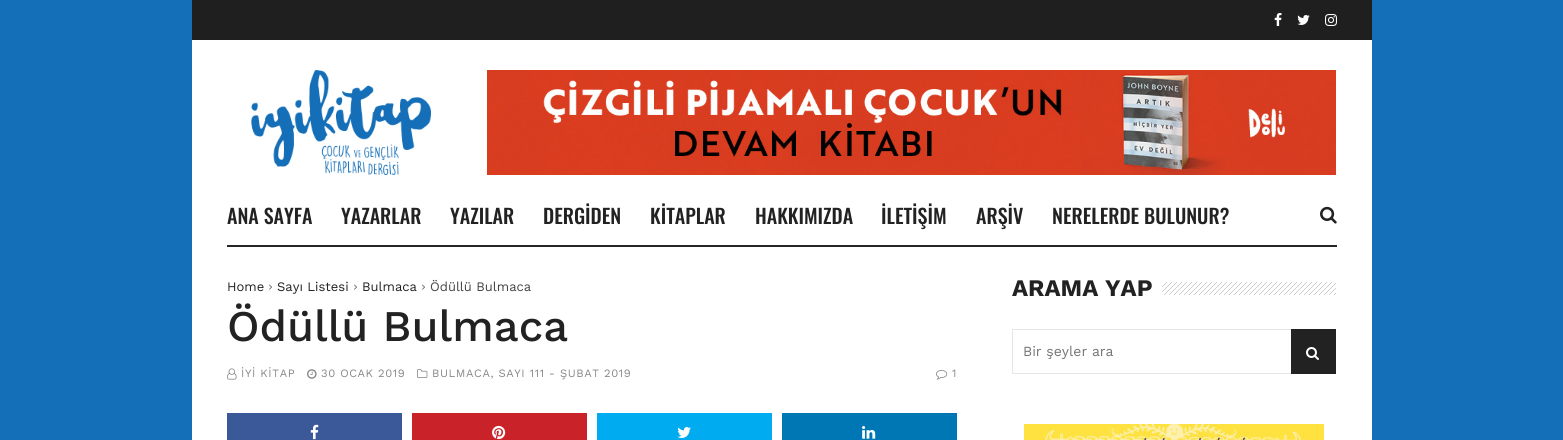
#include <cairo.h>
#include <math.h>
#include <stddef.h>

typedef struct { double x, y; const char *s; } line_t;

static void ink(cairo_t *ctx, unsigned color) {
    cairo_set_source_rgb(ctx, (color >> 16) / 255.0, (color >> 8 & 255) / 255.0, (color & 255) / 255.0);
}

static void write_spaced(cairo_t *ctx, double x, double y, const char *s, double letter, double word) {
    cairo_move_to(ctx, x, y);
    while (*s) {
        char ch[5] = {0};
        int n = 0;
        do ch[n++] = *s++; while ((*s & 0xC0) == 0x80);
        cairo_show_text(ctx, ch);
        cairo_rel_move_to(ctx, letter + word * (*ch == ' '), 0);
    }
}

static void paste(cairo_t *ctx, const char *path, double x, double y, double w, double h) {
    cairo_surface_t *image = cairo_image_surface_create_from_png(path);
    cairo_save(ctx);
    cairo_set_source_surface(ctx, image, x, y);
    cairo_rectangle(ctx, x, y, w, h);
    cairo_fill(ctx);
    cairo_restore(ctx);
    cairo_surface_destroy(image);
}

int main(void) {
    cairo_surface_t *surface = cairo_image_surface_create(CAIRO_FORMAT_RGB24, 1563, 440);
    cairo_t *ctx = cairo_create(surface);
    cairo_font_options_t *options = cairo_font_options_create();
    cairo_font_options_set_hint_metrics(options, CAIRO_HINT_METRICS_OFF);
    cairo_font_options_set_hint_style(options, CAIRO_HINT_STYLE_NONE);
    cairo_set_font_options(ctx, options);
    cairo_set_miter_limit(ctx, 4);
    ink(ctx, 0x156FB8);
    cairo_paint(ctx);
    ink(ctx, 0xFFFFFF);
    cairo_rectangle(ctx, 192, 40, 1180, 400);
    cairo_fill(ctx);
    ink(ctx, 0x1F1F1F);
    cairo_rectangle(ctx, 192, 0, 1180, 40);
    cairo_fill(ctx);
    paste(ctx, "media/1.png", 1274, 13, 8, 13);
    paste(ctx, "media/2.png", 1297, 15, 13, 10);
    paste(ctx, "media/3.png", 1325, 14, 12, 12);
    paste(ctx, "media/4.png", 251, 70, 180, 105);
    paste(ctx, "media/5.png", 487, 70, 849, 105);
    cairo_select_font_face(ctx, "Oswald Medium", CAIRO_FONT_SLANT_NORMAL, CAIRO_FONT_WEIGHT_NORMAL);
    cairo_set_font_size(ctx, 20);
    ink(ctx, 0x222222);
    {
        static const line_t items[] = {
            {227, 224, "ANA SAYFA"},
            {341, 224, "YAZARLAR"},
            {450, 224, "YAZILAR"},
            {543, 224, "DERGİDEN"},
            {650, 224, "KİTAPLAR"},
            {755, 224, "HAKKIMIZDA"},
            {881, 224, "İLETİŞİM"},
            {976, 224, "ARŞİV"},
            {1052, 224, "NERELERDE BULUNUR?"},
        };
        for (size_t i = 0; i < sizeof items / sizeof *items; i++) {
            cairo_move_to(ctx, items[i].x, items[i].y);
            cairo_show_text(ctx, items[i].s);
        }
    }
    paste(ctx, "media/6.png", 1320, 206, 17, 18);
    ink(ctx, 0x262626);
    cairo_rectangle(ctx, 227, 245, 1110, 2);
    cairo_fill(ctx);
    cairo_select_font_face(ctx, "Work Sans", CAIRO_FONT_SLANT_NORMAL, CAIRO_FONT_WEIGHT_NORMAL);
    cairo_set_font_size(ctx, 13);
    ink(ctx, 0x222222);
    cairo_move_to(ctx, 227, 291);
    cairo_show_text(ctx, "Home");
    paste(ctx, "media/7.png", 269, 284, 3, 6);
    cairo_move_to(ctx, 277, 291);
    cairo_show_text(ctx, "Sayı Listesi");
    paste(ctx, "media/7.png", 354, 284, 3, 6);
    cairo_move_to(ctx, 362, 291);
    cairo_show_text(ctx, "Bulmaca");
    paste(ctx, "media/7.png", 422, 284, 3, 6);
    ink(ctx, 0x444444);
    cairo_move_to(ctx, 430, 291);
    cairo_show_text(ctx, "Ödüllü Bulmaca");
    cairo_select_font_face(ctx, "Work Sans Medium", CAIRO_FONT_SLANT_NORMAL, CAIRO_FONT_WEIGHT_NORMAL);
    cairo_set_font_size(ctx, 43.75);
    ink(ctx, 0x222222);
    cairo_move_to(ctx, 227, 341);
    cairo_show_text(ctx, "Ödüllü Bulmaca");
    paste(ctx, "media/8.png", 227, 368, 10, 12);
    cairo_select_font_face(ctx, "Work Sans", CAIRO_FONT_SLANT_NORMAL, CAIRO_FONT_WEIGHT_NORMAL);
    cairo_set_font_size(ctx, 11.25);
    ink(ctx, 0x888888);
    write_spaced(ctx, 241, 377, "İYİ KİTAP", 0.6, 0);
    paste(ctx, "media/9.png", 307, 369, 10, 10);
    write_spaced(ctx, 321, 377, "30 OCAK 2019", 0.6, 0);
    paste(ctx, "media/10.png", 417, 369, 11, 9);
    write_spaced(ctx, 432, 377, "BULMACA, SAYI 111 - ŞUBAT 2019", 0.6, 0);
    paste(ctx, "media/11.png", 936, 370, 12, 10);
    write_spaced(ctx, 952, 377, "1", 0.6, 0);
    ink(ctx, 0x3B5999);
    cairo_rectangle(ctx, 227, 413, 175, 27);
    cairo_fill(ctx);
    paste(ctx, "media/12.png", 310, 424, 9, 16);
    ink(ctx, 0xC92228);
    cairo_rectangle(ctx, 412, 413, 175, 27);
    cairo_fill(ctx);
    paste(ctx, "media/13.png", 492, 425, 14, 15);
    ink(ctx, 0x00ABF0);
    cairo_rectangle(ctx, 597, 413, 175, 27);
    cairo_fill(ctx);
    paste(ctx, "media/14.png", 677, 427, 14, 11);
    ink(ctx, 0x0077B5);
    cairo_rectangle(ctx, 782, 413, 175, 27);
    cairo_fill(ctx);
    paste(ctx, "media/15.png", 862, 426, 14, 13);
    cairo_select_font_face(ctx, "Work Sans", CAIRO_FONT_SLANT_NORMAL, CAIRO_FONT_WEIGHT_BOLD);
    cairo_set_font_size(ctx, 23.75);
    ink(ctx, 0x222222);
    cairo_move_to(ctx, 1012, 296);
    cairo_show_text(ctx, "ARAMA YAP");
    paste(ctx, "media/16.png", 1162, 282, 174, 13);
    cairo_rectangle(ctx, 1012.5, 329.5, 323, 44);
    ink(ctx, 0xE6E6E6);
    cairo_set_line_width(ctx, 1);
    cairo_stroke(ctx);
    cairo_select_font_face(ctx, "Work Sans", CAIRO_FONT_SLANT_NORMAL, CAIRO_FONT_WEIGHT_NORMAL);
    cairo_set_font_size(ctx, 14);
    ink(ctx, 0x757575);
    cairo_move_to(ctx, 1023, 356);
    cairo_show_text(ctx, "Bir şeyler ara");
    ink(ctx, 0x222222);
    cairo_rectangle(ctx, 1291, 329, 45, 45);
    cairo_fill(ctx);
    paste(ctx, "media/17.png", 1306, 347, 13, 13);
    paste(ctx, "media/18.png", 1024, 424, 300, 16);
    cairo_surface_write_to_png(surface, "image.png");
    cairo_font_options_destroy(options);
    cairo_destroy(ctx);
    cairo_surface_destroy(surface);
    return 0;
}
